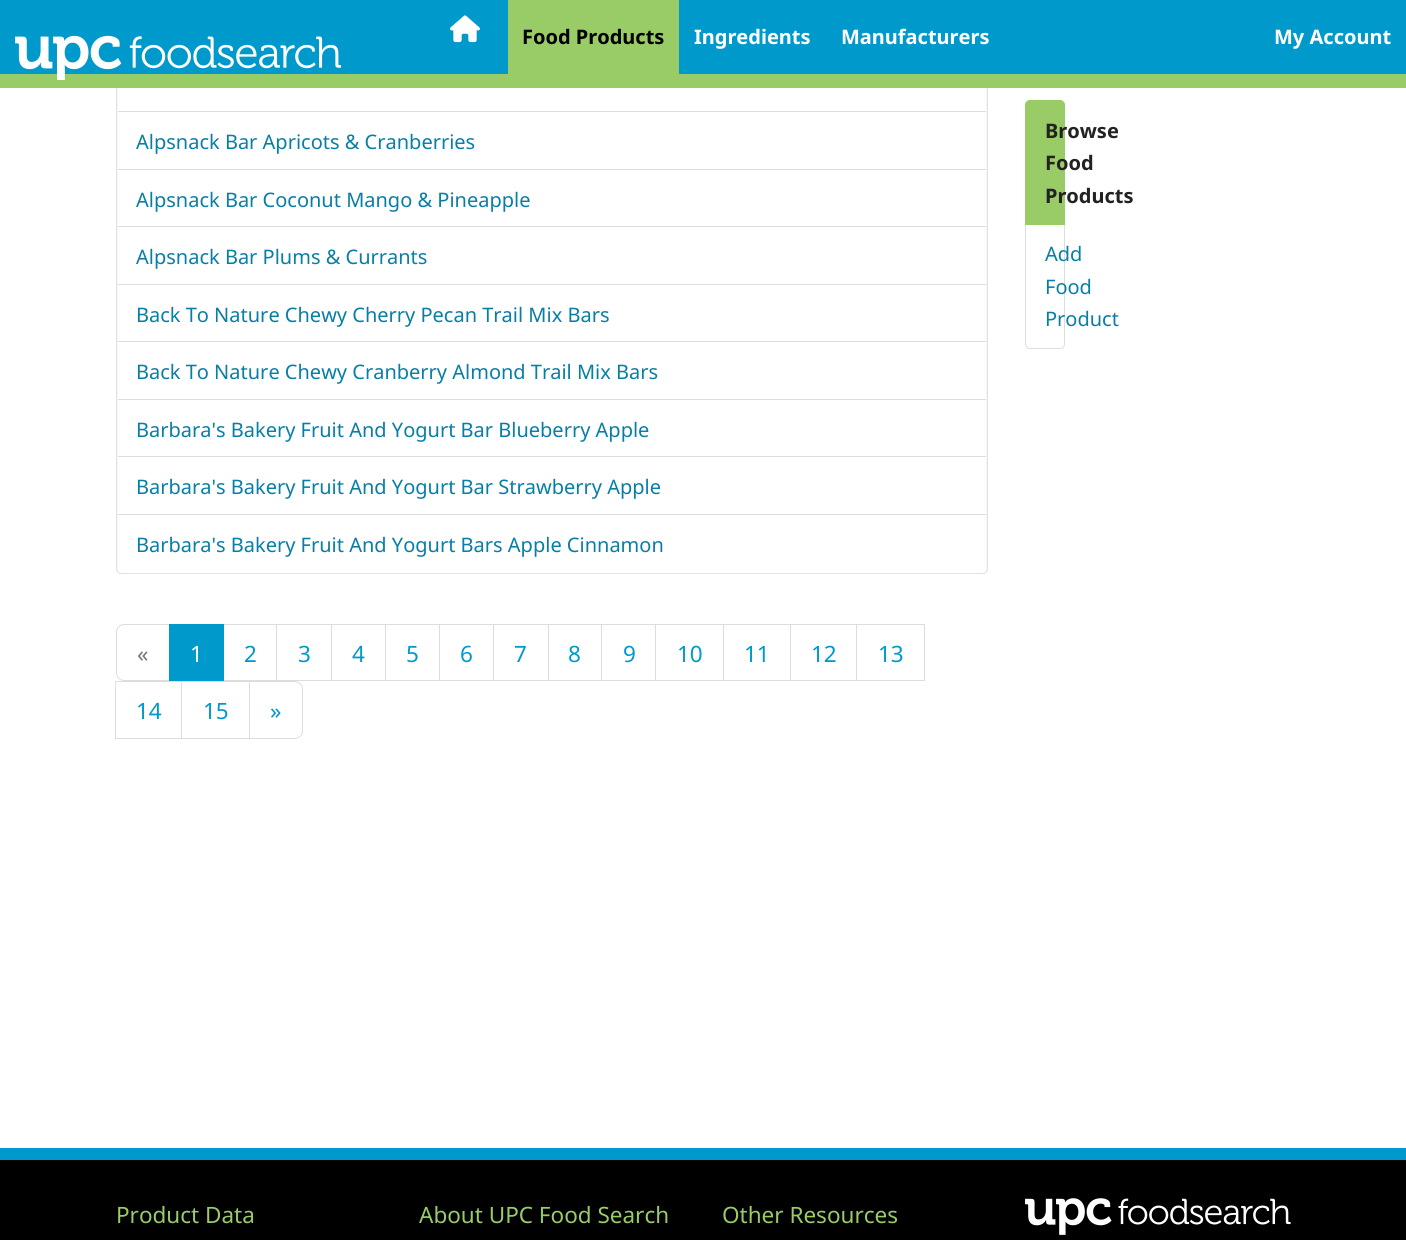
#include <cairo.h>
#include <math.h>
#include <stddef.h>

typedef struct { double x, y; const char *s; } line_t;

static void ink(cairo_t *ctx, unsigned color) {
    cairo_set_source_rgb(ctx, (color >> 16) / 255.0, (color >> 8 & 255) / 255.0, (color & 255) / 255.0);
}

static void round_path(cairo_t *ctx, double x, double y, double w, double h, double r) {
    cairo_new_sub_path(ctx);
    cairo_arc(ctx, x + w - r, y + h - r, r, 0, M_PI / 2);
    cairo_arc(ctx, x + r, y + h - r, r, M_PI / 2, M_PI);
    cairo_arc(ctx, x + r, y + r, r, M_PI, 1.5 * M_PI);
    cairo_arc(ctx, x + w - r, y + r, r, 1.5 * M_PI, 2 * M_PI);
    cairo_close_path(ctx);
}

static void paste(cairo_t *ctx, const char *path, double x, double y, double w, double h) {
    cairo_surface_t *image = cairo_image_surface_create_from_png(path);
    cairo_save(ctx);
    cairo_set_source_surface(ctx, image, x, y);
    cairo_rectangle(ctx, x, y, w, h);
    cairo_fill(ctx);
    cairo_restore(ctx);
    cairo_surface_destroy(image);
}

int main(void) {
    cairo_surface_t *surface = cairo_image_surface_create(CAIRO_FORMAT_RGB24, 1406, 1240);
    cairo_t *ctx = cairo_create(surface);
    cairo_font_options_t *options = cairo_font_options_create();
    cairo_font_options_set_hint_metrics(options, CAIRO_HINT_METRICS_OFF);
    cairo_font_options_set_hint_style(options, CAIRO_HINT_STYLE_NONE);
    cairo_set_font_options(ctx, options);
    cairo_set_miter_limit(ctx, 4);
    ink(ctx, 0xFFFFFF);
    cairo_paint(ctx);
    ink(ctx, 0xF5F5F5);
    round_path(ctx, 116.5, -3.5, 871, 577, 4.5);
    cairo_fill_preserve(ctx);
    ink(ctx, 0xE3E3E3);
    cairo_set_line_width(ctx, 1);
    cairo_stroke(ctx);
    ink(ctx, 0x0099CC);
    cairo_rectangle(ctx, 0, 0, 1406, 74);
    cairo_fill(ctx);
    ink(ctx, 0x99CC66);
    cairo_rectangle(ctx, 0, 74, 1406, 14);
    cairo_fill(ctx);
    paste(ctx, "media/1.png", 15, 35, 326, 45);
    paste(ctx, "media/2.png", 450, 15, 30, 28);
    cairo_rectangle(ctx, 508, 0, 171, 74);
    cairo_fill(ctx);
    cairo_select_font_face(ctx, "Noto Sans", CAIRO_FONT_SLANT_NORMAL, CAIRO_FONT_WEIGHT_BOLD);
    cairo_set_font_size(ctx, 20);
    ink(ctx, 0x000000);
    cairo_move_to(ctx, 522, 44);
    cairo_show_text(ctx, "Food Products");
    ink(ctx, 0xFFFFFF);
    {
        static const line_t items[] = {
            {694, 44, "Ingredients"},
            {841, 44, "Manufacturers"},
            {1274, 44, "My Account"},
        };
        for (size_t i = 0; i < sizeof items / sizeof *items; i++) {
            cairo_move_to(ctx, items[i].x, items[i].y);
            cairo_show_text(ctx, items[i].s);
        }
    }
    cairo_rectangle(ctx, 118, 88, 868, 81);
    cairo_fill(ctx);
    ink(ctx, 0xDDDDDD);
    cairo_rectangle(ctx, 118, 111, 868, 1);
    cairo_fill(ctx);
    cairo_select_font_face(ctx, "Noto Sans", CAIRO_FONT_SLANT_NORMAL, CAIRO_FONT_WEIGHT_NORMAL);
    ink(ctx, 0x087EA6);
    cairo_move_to(ctx, 136, 149);
    cairo_show_text(ctx, "Alpsnack Bar Apricots & Cranberries");
    ink(ctx, 0xFFFFFF);
    cairo_rectangle(ctx, 118, 170, 868, 114);
    cairo_fill(ctx);
    ink(ctx, 0xDDDDDD);
    cairo_rectangle(ctx, 118, 169, 868, 1);
    cairo_fill(ctx);
    ink(ctx, 0x087EA6);
    cairo_move_to(ctx, 136, 207);
    cairo_show_text(ctx, "Alpsnack Bar Coconut Mango & Pineapple");
    ink(ctx, 0xDDDDDD);
    cairo_rectangle(ctx, 118, 226, 868, 1);
    cairo_fill(ctx);
    ink(ctx, 0x087EA6);
    cairo_move_to(ctx, 136, 264);
    cairo_show_text(ctx, "Alpsnack Bar Plums & Currants");
    ink(ctx, 0xFFFFFF);
    cairo_rectangle(ctx, 118, 285, 868, 114);
    cairo_fill(ctx);
    ink(ctx, 0xDDDDDD);
    cairo_rectangle(ctx, 118, 284, 868, 1);
    cairo_fill(ctx);
    ink(ctx, 0x087EA6);
    cairo_move_to(ctx, 136, 322);
    cairo_show_text(ctx, "Back To Nature Chewy Cherry Pecan Trail Mix Bars");
    ink(ctx, 0xDDDDDD);
    cairo_rectangle(ctx, 118, 341, 868, 1);
    cairo_fill(ctx);
    ink(ctx, 0x087EA6);
    cairo_move_to(ctx, 136, 379);
    cairo_show_text(ctx, "Back To Nature Chewy Cranberry Almond Trail Mix Bars");
    ink(ctx, 0xFFFFFF);
    cairo_rectangle(ctx, 118, 400, 868, 114);
    cairo_fill(ctx);
    ink(ctx, 0xDDDDDD);
    cairo_rectangle(ctx, 118, 399, 868, 1);
    cairo_fill(ctx);
    ink(ctx, 0x087EA6);
    cairo_move_to(ctx, 136, 437);
    cairo_show_text(ctx, "Barbara's Bakery Fruit And Yogurt Bar Blueberry Apple");
    ink(ctx, 0xDDDDDD);
    cairo_rectangle(ctx, 118, 456, 868, 1);
    cairo_fill(ctx);
    ink(ctx, 0x087EA6);
    cairo_move_to(ctx, 136, 494);
    cairo_show_text(ctx, "Barbara's Bakery Fruit And Yogurt Bar Strawberry Apple");
    ink(ctx, 0xFFFFFF);
    cairo_new_path(ctx);
    cairo_move_to(ctx, 118, 515);
    cairo_line_to(ctx, 986, 515);
    cairo_line_to(ctx, 986, 569);
    cairo_curve_to(ctx, 986, 571, 984, 573, 982, 573);
    cairo_line_to(ctx, 122, 573);
    cairo_curve_to(ctx, 120, 573, 118, 571, 118, 569);
    cairo_close_path(ctx);
    cairo_fill(ctx);
    ink(ctx, 0xDDDDDD);
    cairo_rectangle(ctx, 118, 514, 868, 1);
    cairo_fill(ctx);
    ink(ctx, 0x087EA6);
    cairo_move_to(ctx, 136, 552);
    cairo_show_text(ctx, "Barbara's Bakery Fruit And Yogurt Bars Apple Cinnamon");
    cairo_new_path(ctx);
    cairo_move_to(ctx, 124, 624.5);
    cairo_line_to(ctx, 169.5, 624.5);
    cairo_line_to(ctx, 169.5, 680.5);
    cairo_line_to(ctx, 124, 680.5);
    cairo_curve_to(ctx, 120, 680.5, 116.5, 677, 116.5, 673);
    cairo_line_to(ctx, 116.5, 632);
    cairo_curve_to(ctx, 116.5, 628, 120, 624.5, 124, 624.5);
    cairo_close_path(ctx);
    ink(ctx, 0xDDDDDD);
    cairo_stroke(ctx);
    cairo_set_font_size(ctx, 22.5);
    ink(ctx, 0x777777);
    cairo_move_to(ctx, 137, 662);
    cairo_show_text(ctx, "«");
    cairo_rectangle(ctx, 223.5, 624.5, 54, 56);
    ink(ctx, 0xDDDDDD);
    cairo_stroke(ctx);
    ink(ctx, 0x0099CC);
    cairo_rectangle(ctx, 169, 624, 55, 57);
    cairo_fill(ctx);
    ink(ctx, 0xFFFFFF);
    cairo_move_to(ctx, 190, 662);
    cairo_show_text(ctx, "1");
    ink(ctx, 0x0099CC);
    cairo_move_to(ctx, 244, 662);
    cairo_show_text(ctx, "2");
    ink(ctx, 0xFFFFFF);
    cairo_rectangle(ctx, 277, 625, 1, 55);
    cairo_fill(ctx);
    cairo_rectangle(ctx, 276.5, 624.5, 56, 56);
    ink(ctx, 0xDDDDDD);
    cairo_stroke(ctx);
    ink(ctx, 0x0099CC);
    cairo_move_to(ctx, 298, 662);
    cairo_show_text(ctx, "3");
    ink(ctx, 0xFFFFFF);
    cairo_rectangle(ctx, 332, 625, 1, 55);
    cairo_fill(ctx);
    cairo_rectangle(ctx, 331.5, 624.5, 54, 56);
    ink(ctx, 0xDDDDDD);
    cairo_stroke(ctx);
    ink(ctx, 0x0099CC);
    cairo_move_to(ctx, 352, 662);
    cairo_show_text(ctx, "4");
    cairo_rectangle(ctx, 385.5, 624.5, 54, 56);
    ink(ctx, 0xDDDDDD);
    cairo_stroke(ctx);
    ink(ctx, 0x0099CC);
    cairo_move_to(ctx, 406, 662);
    cairo_show_text(ctx, "5");
    cairo_rectangle(ctx, 439.5, 624.5, 54, 56);
    ink(ctx, 0xDDDDDD);
    cairo_stroke(ctx);
    ink(ctx, 0x0099CC);
    cairo_move_to(ctx, 460, 662);
    cairo_show_text(ctx, "6");
    cairo_rectangle(ctx, 493.5, 624.5, 55, 56);
    ink(ctx, 0xDDDDDD);
    cairo_stroke(ctx);
    ink(ctx, 0x0099CC);
    cairo_move_to(ctx, 514, 662);
    cairo_show_text(ctx, "7");
    cairo_rectangle(ctx, 548.5, 624.5, 54, 56);
    ink(ctx, 0xDDDDDD);
    cairo_stroke(ctx);
    ink(ctx, 0x0099CC);
    cairo_move_to(ctx, 568, 662);
    cairo_show_text(ctx, "8");
    ink(ctx, 0xFFFFFF);
    cairo_rectangle(ctx, 602, 625, 1, 55);
    cairo_fill(ctx);
    cairo_rectangle(ctx, 601.5, 624.5, 54, 56);
    ink(ctx, 0xDDDDDD);
    cairo_stroke(ctx);
    ink(ctx, 0x0099CC);
    cairo_move_to(ctx, 623, 662);
    cairo_show_text(ctx, "9");
    cairo_rectangle(ctx, 655.5, 624.5, 68, 56);
    ink(ctx, 0xDDDDDD);
    cairo_stroke(ctx);
    ink(ctx, 0x0099CC);
    cairo_move_to(ctx, 677, 662);
    cairo_show_text(ctx, "10");
    cairo_rectangle(ctx, 723.5, 624.5, 67, 56);
    ink(ctx, 0xDDDDDD);
    cairo_stroke(ctx);
    ink(ctx, 0x0099CC);
    cairo_move_to(ctx, 744, 662);
    cairo_show_text(ctx, "11");
    cairo_rectangle(ctx, 790.5, 624.5, 67, 56);
    ink(ctx, 0xDDDDDD);
    cairo_stroke(ctx);
    ink(ctx, 0x0099CC);
    cairo_move_to(ctx, 811, 662);
    cairo_show_text(ctx, "12");
    ink(ctx, 0xFFFFFF);
    cairo_rectangle(ctx, 857, 625, 1, 55);
    cairo_fill(ctx);
    cairo_rectangle(ctx, 856.5, 624.5, 68, 56);
    ink(ctx, 0xDDDDDD);
    cairo_stroke(ctx);
    ink(ctx, 0x0099CC);
    cairo_move_to(ctx, 878, 662);
    cairo_show_text(ctx, "13");
    cairo_rectangle(ctx, 115.5, 681.5, 67, 57);
    ink(ctx, 0xDDDDDD);
    cairo_stroke(ctx);
    ink(ctx, 0x0099CC);
    cairo_move_to(ctx, 136, 719);
    cairo_show_text(ctx, "14");
    ink(ctx, 0xFFFFFF);
    cairo_rectangle(ctx, 182, 682, 1, 56);
    cairo_fill(ctx);
    cairo_rectangle(ctx, 181.5, 681.5, 68, 57);
    ink(ctx, 0xDDDDDD);
    cairo_stroke(ctx);
    ink(ctx, 0x0099CC);
    cairo_move_to(ctx, 203, 719);
    cairo_show_text(ctx, "15");
    ink(ctx, 0xFFFFFF);
    cairo_new_path(ctx);
    cairo_move_to(ctx, 249.5, 681.5);
    cairo_line_to(ctx, 295, 681.5);
    cairo_curve_to(ctx, 299, 681.5, 302.5, 685, 302.5, 689);
    cairo_line_to(ctx, 302.5, 731);
    cairo_curve_to(ctx, 302.5, 735, 299, 738.5, 295, 738.5);
    cairo_line_to(ctx, 249.5, 738.5);
    cairo_close_path(ctx);
    cairo_fill_preserve(ctx);
    ink(ctx, 0xDDDDDD);
    cairo_stroke(ctx);
    ink(ctx, 0x0099CC);
    cairo_move_to(ctx, 270, 719);
    cairo_show_text(ctx, "»");
    cairo_new_path(ctx);
    cairo_move_to(ctx, 1025.5, 224.5);
    cairo_line_to(ctx, 1064.5, 224.5);
    cairo_line_to(ctx, 1064.5, 344);
    cairo_curve_to(ctx, 1064.5, 346.5, 1062.5, 348.5, 1060, 348.5);
    cairo_line_to(ctx, 1030, 348.5);
    cairo_curve_to(ctx, 1027.5, 348.5, 1025.5, 346.5, 1025.5, 344);
    cairo_close_path(ctx);
    ink(ctx, 0xDDDDDD);
    cairo_stroke(ctx);
    ink(ctx, 0x99CC66);
    cairo_new_path(ctx);
    cairo_move_to(ctx, 1030, 100.5);
    cairo_line_to(ctx, 1060, 100.5);
    cairo_curve_to(ctx, 1062.5, 100.5, 1064.5, 102.5, 1064.5, 105);
    cairo_line_to(ctx, 1064.5, 224.5);
    cairo_line_to(ctx, 1025.5, 224.5);
    cairo_line_to(ctx, 1025.5, 105);
    cairo_curve_to(ctx, 1025.5, 102.5, 1027.5, 100.5, 1030, 100.5);
    cairo_close_path(ctx);
    cairo_fill_preserve(ctx);
    cairo_stroke(ctx);
    cairo_select_font_face(ctx, "Noto Sans", CAIRO_FONT_SLANT_NORMAL, CAIRO_FONT_WEIGHT_BOLD);
    cairo_set_font_size(ctx, 20);
    ink(ctx, 0x222222);
    {
        static const line_t items[] = {
            {1045, 138, "Browse"},
            {1045, 170, "Food"},
            {1045, 203, "Products"},
        };
        for (size_t i = 0; i < sizeof items / sizeof *items; i++) {
            cairo_move_to(ctx, items[i].x, items[i].y);
            cairo_show_text(ctx, items[i].s);
        }
    }
    cairo_select_font_face(ctx, "Noto Sans", CAIRO_FONT_SLANT_NORMAL, CAIRO_FONT_WEIGHT_NORMAL);
    ink(ctx, 0x087EA6);
    {
        static const line_t items[] = {
            {1045, 261, "Add"},
            {1045, 294, "Food"},
            {1045, 326, "Product"},
        };
        for (size_t i = 0; i < sizeof items / sizeof *items; i++) {
            cairo_move_to(ctx, items[i].x, items[i].y);
            cairo_show_text(ctx, items[i].s);
        }
    }
    ink(ctx, 0x000000);
    cairo_rectangle(ctx, 0, 1160, 1406, 80);
    cairo_fill(ctx);
    ink(ctx, 0x0099CC);
    cairo_rectangle(ctx, 0, 1148, 1406, 12);
    cairo_fill(ctx);
    cairo_set_font_size(ctx, 22.5);
    ink(ctx, 0x99CC66);
    {
        static const line_t items[] = {
            {116, 1223, "Product Data"},
            {419, 1223, "About UPC Food Search"},
            {722, 1223, "Other Resources"},
        };
        for (size_t i = 0; i < sizeof items / sizeof *items; i++) {
            cairo_move_to(ctx, items[i].x, items[i].y);
            cairo_show_text(ctx, items[i].s);
        }
    }
    paste(ctx, "media/3.png", 1025, 1198, 266, 37);
    cairo_surface_write_to_png(surface, "image.png");
    cairo_font_options_destroy(options);
    cairo_destroy(ctx);
    cairo_surface_destroy(surface);
    return 0;
}
